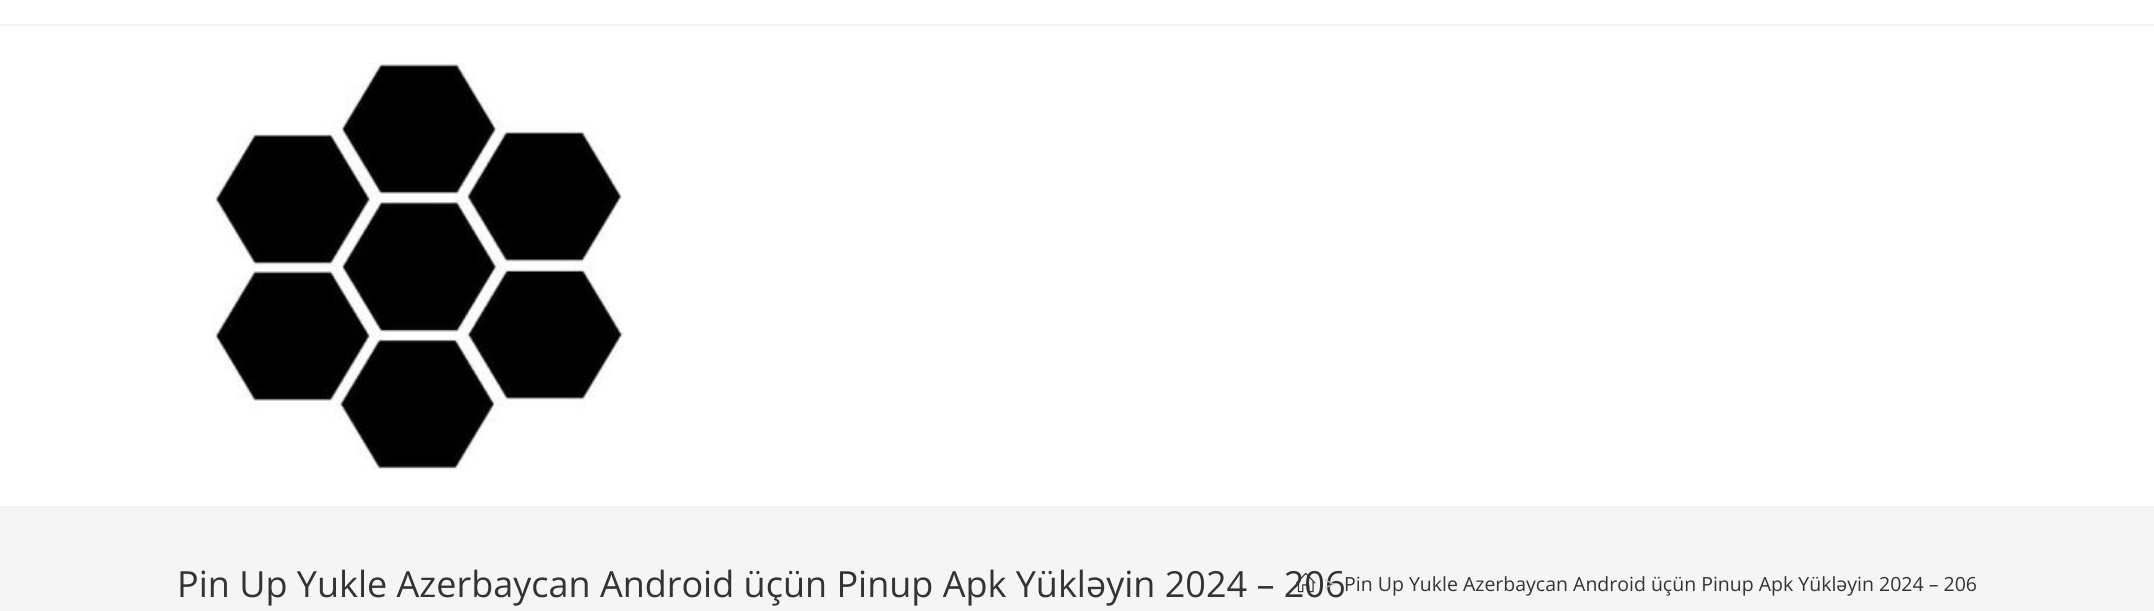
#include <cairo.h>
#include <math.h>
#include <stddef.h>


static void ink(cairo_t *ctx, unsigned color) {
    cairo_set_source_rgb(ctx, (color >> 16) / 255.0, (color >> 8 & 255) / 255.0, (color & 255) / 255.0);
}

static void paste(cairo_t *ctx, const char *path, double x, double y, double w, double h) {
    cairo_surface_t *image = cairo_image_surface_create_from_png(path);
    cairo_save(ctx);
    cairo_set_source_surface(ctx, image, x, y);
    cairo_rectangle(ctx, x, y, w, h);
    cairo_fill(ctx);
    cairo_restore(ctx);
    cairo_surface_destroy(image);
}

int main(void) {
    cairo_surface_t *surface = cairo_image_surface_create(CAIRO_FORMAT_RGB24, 2154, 611);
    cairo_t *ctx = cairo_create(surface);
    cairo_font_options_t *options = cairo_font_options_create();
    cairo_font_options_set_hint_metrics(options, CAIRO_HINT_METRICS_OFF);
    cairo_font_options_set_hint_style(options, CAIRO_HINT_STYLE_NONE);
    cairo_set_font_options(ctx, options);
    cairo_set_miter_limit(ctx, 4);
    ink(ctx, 0xFFFFFF);
    cairo_paint(ctx);
    ink(ctx, 0xF1F1F1);
    cairo_rectangle(ctx, 0, 24, 2154, 2);
    cairo_fill(ctx);
    cairo_rectangle(ctx, 0, 506, 2154, 2);
    cairo_fill(ctx);
    paste(ctx, "media/1.png", 213, 62, 411, 408);
    ink(ctx, 0xF5F5F5);
    cairo_rectangle(ctx, 0, 508, 2154, 103);
    cairo_fill(ctx);
    cairo_select_font_face(ctx, "Open Sans", CAIRO_FONT_SLANT_NORMAL, CAIRO_FONT_WEIGHT_NORMAL);
    cairo_set_font_size(ctx, 36);
    ink(ctx, 0x333333);
    cairo_move_to(ctx, 177, 597);
    cairo_show_text(ctx, "Pin Up Yukle Azerbaycan Android üçün Pinup Apk Yükləyin 2024 – 206");
    paste(ctx, "media/2.png", 1296, 572, 20, 21);
    cairo_set_font_size(ctx, 19.5);
    ink(ctx, 0xC6C6C6);
    cairo_move_to(ctx, 1324, 591);
    cairo_show_text(ctx, ">");
    ink(ctx, 0x333333);
    cairo_move_to(ctx, 1344, 591);
    cairo_show_text(ctx, "Pin Up Yukle Azerbaycan Android üçün Pinup Apk Yükləyin 2024 – 206");
    cairo_surface_write_to_png(surface, "image.png");
    cairo_font_options_destroy(options);
    cairo_destroy(ctx);
    cairo_surface_destroy(surface);
    return 0;
}
